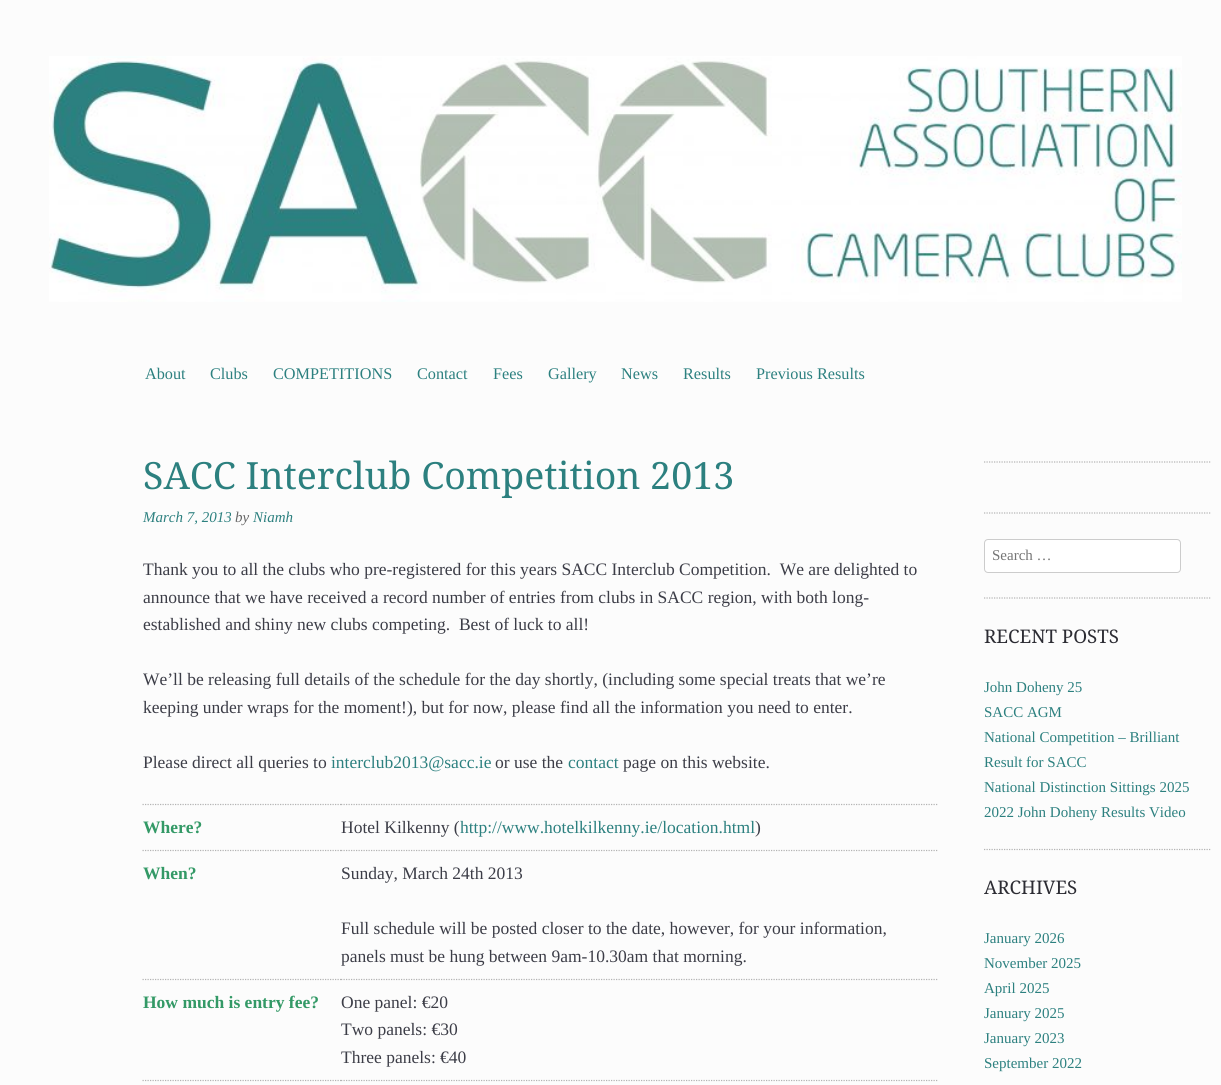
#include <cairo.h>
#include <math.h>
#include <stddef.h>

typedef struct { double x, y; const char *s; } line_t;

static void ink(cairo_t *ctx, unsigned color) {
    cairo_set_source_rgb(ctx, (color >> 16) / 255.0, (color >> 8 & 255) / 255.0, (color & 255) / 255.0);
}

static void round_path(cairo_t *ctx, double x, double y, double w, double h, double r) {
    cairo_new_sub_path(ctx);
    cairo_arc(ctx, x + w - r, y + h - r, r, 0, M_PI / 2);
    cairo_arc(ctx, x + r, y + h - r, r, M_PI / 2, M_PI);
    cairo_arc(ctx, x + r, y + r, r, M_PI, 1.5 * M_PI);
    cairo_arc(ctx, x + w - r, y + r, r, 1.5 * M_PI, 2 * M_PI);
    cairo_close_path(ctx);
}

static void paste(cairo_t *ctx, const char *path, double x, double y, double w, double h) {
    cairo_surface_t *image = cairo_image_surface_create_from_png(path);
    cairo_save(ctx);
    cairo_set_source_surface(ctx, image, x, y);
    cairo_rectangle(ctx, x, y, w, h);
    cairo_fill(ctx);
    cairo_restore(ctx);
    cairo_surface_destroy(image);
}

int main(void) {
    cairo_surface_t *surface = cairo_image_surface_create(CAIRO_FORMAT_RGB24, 1221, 1085);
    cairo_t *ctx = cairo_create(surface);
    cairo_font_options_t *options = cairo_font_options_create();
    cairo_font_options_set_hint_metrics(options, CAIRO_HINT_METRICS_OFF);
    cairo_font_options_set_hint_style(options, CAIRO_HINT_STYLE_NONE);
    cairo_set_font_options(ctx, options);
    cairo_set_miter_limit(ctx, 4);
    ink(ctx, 0xFCFCFC);
    cairo_paint(ctx);
    paste(ctx, "media/1.png", 49, 56, 1133, 246);
    cairo_select_font_face(ctx, "Liberation Serif", CAIRO_FONT_SLANT_NORMAL, CAIRO_FONT_WEIGHT_NORMAL);
    cairo_set_font_size(ctx, 16.25);
    ink(ctx, 0x2C807F);
    {
        static const line_t items[] = {
            {145, 379, "About"},
            {210, 379, "Clubs"},
            {273, 379, "COMPETITIONS"},
            {417, 379, "Contact"},
            {493, 379, "Fees"},
            {548, 379, "Gallery"},
            {621, 379, "News"},
            {683, 379, "Results"},
            {756, 379, "Previous Results"},
        };
        for (size_t i = 0; i < sizeof items / sizeof *items; i++) {
            cairo_move_to(ctx, items[i].x, items[i].y);
            cairo_show_text(ctx, items[i].s);
        }
    }
    cairo_select_font_face(ctx, "Droid Serif", CAIRO_FONT_SLANT_NORMAL, CAIRO_FONT_WEIGHT_NORMAL);
    cairo_set_font_size(ctx, 37.5);
    cairo_move_to(ctx, 143, 489);
    cairo_show_text(ctx, "SACC Interclub Competition 2013");
    cairo_select_font_face(ctx, "Liberation Serif", CAIRO_FONT_SLANT_ITALIC, CAIRO_FONT_WEIGHT_NORMAL);
    cairo_set_font_size(ctx, 15);
    cairo_move_to(ctx, 143, 522);
    cairo_show_text(ctx, "March 7, 2013");
    ink(ctx, 0x666666);
    cairo_move_to(ctx, 235, 522);
    cairo_show_text(ctx, "by");
    ink(ctx, 0x2C807F);
    cairo_move_to(ctx, 253, 522);
    cairo_show_text(ctx, "Niamh");
    cairo_select_font_face(ctx, "Liberation Serif", CAIRO_FONT_SLANT_NORMAL, CAIRO_FONT_WEIGHT_NORMAL);
    cairo_set_font_size(ctx, 17.5);
    ink(ctx, 0x3C3D47);
    {
        static const line_t items[] = {
            {143, 575, "Thank you to all the clubs who pre-registered for this years SACC Interclub Competition.  We are delighted to"},
            {143, 603, "announce that we have received a record number of entries from clubs in SACC region, with both long-"},
            {143, 630, "established and shiny new clubs competing.  Best of luck to all!"},
            {143, 685, "We’ll be releasing full details of the schedule for the day shortly, (including some special treats that we’re"},
            {143, 713, "keeping under wraps for the moment!), but for now, please find all the information you need to enter."},
            {143, 768, "Please direct all queries to"},
        };
        for (size_t i = 0; i < sizeof items / sizeof *items; i++) {
            cairo_move_to(ctx, items[i].x, items[i].y);
            cairo_show_text(ctx, items[i].s);
        }
    }
    ink(ctx, 0x2C807F);
    cairo_move_to(ctx, 331, 768);
    cairo_show_text(ctx, "interclub2013@sacc.ie");
    ink(ctx, 0x3C3D47);
    cairo_move_to(ctx, 495, 768);
    cairo_show_text(ctx, "or use the");
    ink(ctx, 0x2C807F);
    cairo_move_to(ctx, 568, 768);
    cairo_show_text(ctx, "contact");
    ink(ctx, 0x3C3D47);
    cairo_move_to(ctx, 623, 768);
    cairo_show_text(ctx, "page on this website.");
    cairo_new_path(ctx);
    cairo_move_to(ctx, 142.5, 804.5);
    cairo_line_to(ctx, 341, 804.5);
    ink(ctx, 0xB3B3B3);
    cairo_set_line_width(ctx, 1.2);
    cairo_set_dash(ctx, (double[]){1.25, 1.25}, 2, 0);
    cairo_stroke(ctx);
    cairo_select_font_face(ctx, "Liberation Serif", CAIRO_FONT_SLANT_NORMAL, CAIRO_FONT_WEIGHT_BOLD);
    ink(ctx, 0x339966);
    cairo_move_to(ctx, 143, 833);
    cairo_show_text(ctx, "Where?");
    cairo_new_path(ctx);
    cairo_move_to(ctx, 341, 804.5);
    cairo_line_to(ctx, 937.5, 804.5);
    ink(ctx, 0xB3B3B3);
    cairo_stroke(ctx);
    cairo_select_font_face(ctx, "Liberation Serif", CAIRO_FONT_SLANT_NORMAL, CAIRO_FONT_WEIGHT_NORMAL);
    ink(ctx, 0x3C3D47);
    cairo_move_to(ctx, 341, 833);
    cairo_show_text(ctx, "Hotel Kilkenny (");
    ink(ctx, 0x2C807F);
    cairo_move_to(ctx, 460, 833);
    cairo_show_text(ctx, "http://www.hotelkilkenny.ie/location.html");
    ink(ctx, 0x3C3D47);
    cairo_move_to(ctx, 755, 833);
    cairo_show_text(ctx, ")");
    cairo_new_path(ctx);
    cairo_move_to(ctx, 142.5, 850.5);
    cairo_line_to(ctx, 341, 850.5);
    ink(ctx, 0xB3B3B3);
    cairo_stroke(ctx);
    cairo_select_font_face(ctx, "Liberation Serif", CAIRO_FONT_SLANT_NORMAL, CAIRO_FONT_WEIGHT_BOLD);
    ink(ctx, 0x339966);
    cairo_move_to(ctx, 143, 879);
    cairo_show_text(ctx, "When?");
    cairo_new_path(ctx);
    cairo_move_to(ctx, 341, 850.5);
    cairo_line_to(ctx, 937.5, 850.5);
    ink(ctx, 0xB3B3B3);
    cairo_stroke(ctx);
    cairo_select_font_face(ctx, "Liberation Serif", CAIRO_FONT_SLANT_NORMAL, CAIRO_FONT_WEIGHT_NORMAL);
    ink(ctx, 0x3C3D47);
    {
        static const line_t items[] = {
            {341, 879, "Sunday, March 24th 2013"},
            {341, 934, "Full schedule will be posted closer to the date, however, for your information,"},
            {341, 962, "panels must be hung between 9am-10.30am that morning."},
        };
        for (size_t i = 0; i < sizeof items / sizeof *items; i++) {
            cairo_move_to(ctx, items[i].x, items[i].y);
            cairo_show_text(ctx, items[i].s);
        }
    }
    cairo_new_path(ctx);
    cairo_move_to(ctx, 142.5, 979.5);
    cairo_line_to(ctx, 341, 979.5);
    ink(ctx, 0xB3B3B3);
    cairo_stroke(ctx);
    cairo_select_font_face(ctx, "Liberation Serif", CAIRO_FONT_SLANT_NORMAL, CAIRO_FONT_WEIGHT_BOLD);
    ink(ctx, 0x339966);
    cairo_move_to(ctx, 143, 1008);
    cairo_show_text(ctx, "How much is entry fee?");
    cairo_new_path(ctx);
    cairo_move_to(ctx, 341, 979.5);
    cairo_line_to(ctx, 937.5, 979.5);
    ink(ctx, 0xB3B3B3);
    cairo_stroke(ctx);
    cairo_select_font_face(ctx, "Liberation Serif", CAIRO_FONT_SLANT_NORMAL, CAIRO_FONT_WEIGHT_NORMAL);
    ink(ctx, 0x3C3D47);
    {
        static const line_t items[] = {
            {341, 1008, "One panel: €20"},
            {341, 1035, "Two panels: €30"},
            {341, 1063, "Three panels: €40"},
        };
        for (size_t i = 0; i < sizeof items / sizeof *items; i++) {
            cairo_move_to(ctx, items[i].x, items[i].y);
            cairo_show_text(ctx, items[i].s);
        }
    }
    cairo_new_path(ctx);
    cairo_move_to(ctx, 142.5, 1080.5);
    cairo_line_to(ctx, 341, 1080.5);
    ink(ctx, 0xB3B3B3);
    cairo_stroke(ctx);
    cairo_new_path(ctx);
    cairo_move_to(ctx, 341, 1080.5);
    cairo_line_to(ctx, 937.5, 1080.5);
    cairo_stroke(ctx);
    cairo_new_path(ctx);
    cairo_move_to(ctx, 984, 462);
    cairo_line_to(ctx, 1211, 462);
    cairo_stroke(ctx);
    cairo_new_path(ctx);
    cairo_move_to(ctx, 984, 513);
    cairo_line_to(ctx, 1211, 513);
    cairo_stroke(ctx);
    ink(ctx, 0xFFFFFF);
    round_path(ctx, 984.5, 539.5, 196, 33, 3.5);
    cairo_fill_preserve(ctx);
    ink(ctx, 0xCCCCCC);
    cairo_set_line_width(ctx, 1);
    cairo_set_dash(ctx, NULL, 0, 0);
    cairo_stroke(ctx);
    cairo_set_font_size(ctx, 15);
    ink(ctx, 0x757575);
    cairo_move_to(ctx, 992, 560);
    cairo_show_text(ctx, "Search …");
    cairo_new_path(ctx);
    cairo_move_to(ctx, 984, 598);
    cairo_line_to(ctx, 1211, 598);
    ink(ctx, 0xB3B3B3);
    cairo_set_line_width(ctx, 1.2);
    cairo_set_dash(ctx, (double[]){1.25, 1.25}, 2, 0);
    cairo_stroke(ctx);
    cairo_select_font_face(ctx, "Droid Serif", CAIRO_FONT_SLANT_NORMAL, CAIRO_FONT_WEIGHT_NORMAL);
    cairo_set_font_size(ctx, 18.75);
    ink(ctx, 0x2C2C33);
    cairo_move_to(ctx, 984, 643);
    cairo_show_text(ctx, "RECENT POSTS");
    cairo_select_font_face(ctx, "Liberation Serif", CAIRO_FONT_SLANT_NORMAL, CAIRO_FONT_WEIGHT_NORMAL);
    cairo_set_font_size(ctx, 15);
    ink(ctx, 0x2C807F);
    {
        static const line_t items[] = {
            {984, 692, "John Doheny 25"},
            {984, 717, "SACC AGM"},
            {984, 742, "National Competition – Brilliant"},
            {984, 767, "Result for SACC"},
            {984, 792, "National Distinction Sittings 2025"},
            {984, 817, "2022 John Doheny Results Video"},
        };
        for (size_t i = 0; i < sizeof items / sizeof *items; i++) {
            cairo_move_to(ctx, items[i].x, items[i].y);
            cairo_show_text(ctx, items[i].s);
        }
    }
    cairo_new_path(ctx);
    cairo_move_to(ctx, 984, 849.5);
    cairo_line_to(ctx, 1211, 849.5);
    ink(ctx, 0xB3B3B3);
    cairo_stroke(ctx);
    cairo_select_font_face(ctx, "Droid Serif", CAIRO_FONT_SLANT_NORMAL, CAIRO_FONT_WEIGHT_NORMAL);
    cairo_set_font_size(ctx, 18.75);
    ink(ctx, 0x2C2C33);
    cairo_move_to(ctx, 984, 894);
    cairo_show_text(ctx, "ARCHIVES");
    cairo_select_font_face(ctx, "Liberation Serif", CAIRO_FONT_SLANT_NORMAL, CAIRO_FONT_WEIGHT_NORMAL);
    cairo_set_font_size(ctx, 15);
    ink(ctx, 0x2C807F);
    {
        static const line_t items[] = {
            {984, 943, "January 2026"},
            {984, 968, "November 2025"},
            {984, 993, "April 2025"},
            {984, 1018, "January 2025"},
            {984, 1043, "January 2023"},
            {984, 1068, "September 2022"},
        };
        for (size_t i = 0; i < sizeof items / sizeof *items; i++) {
            cairo_move_to(ctx, items[i].x, items[i].y);
            cairo_show_text(ctx, items[i].s);
        }
    }
    cairo_surface_write_to_png(surface, "image.png");
    cairo_font_options_destroy(options);
    cairo_destroy(ctx);
    cairo_surface_destroy(surface);
    return 0;
}
